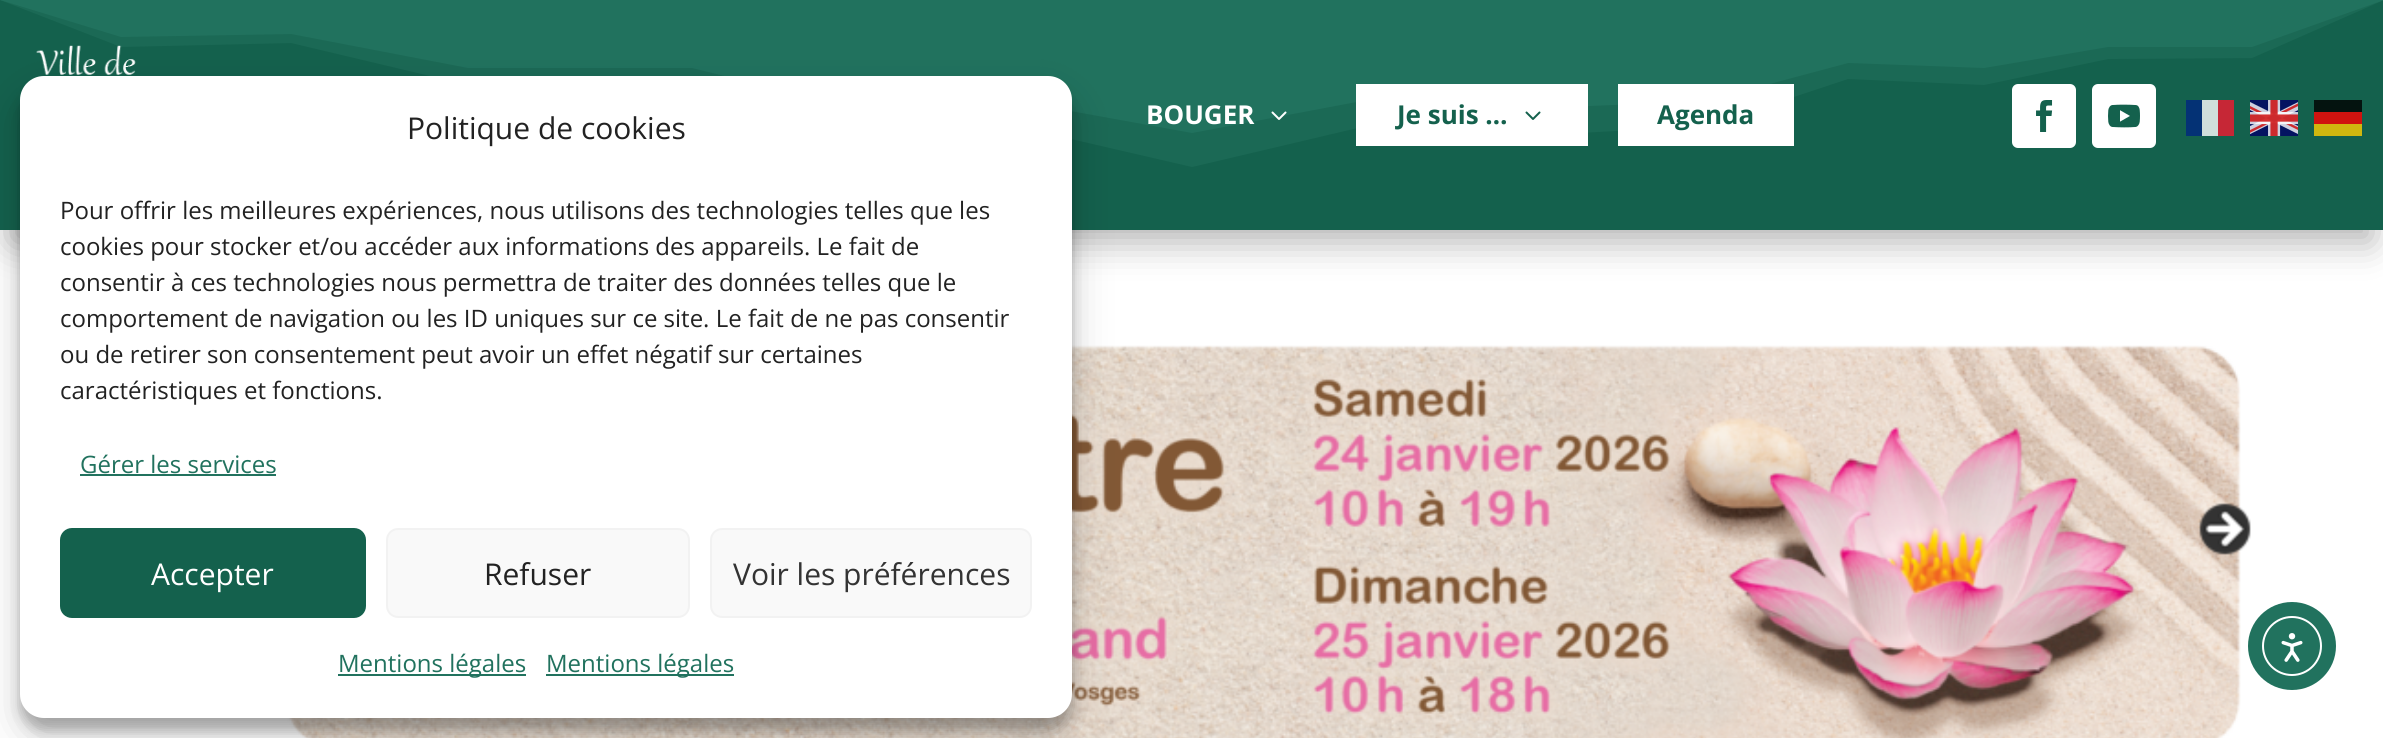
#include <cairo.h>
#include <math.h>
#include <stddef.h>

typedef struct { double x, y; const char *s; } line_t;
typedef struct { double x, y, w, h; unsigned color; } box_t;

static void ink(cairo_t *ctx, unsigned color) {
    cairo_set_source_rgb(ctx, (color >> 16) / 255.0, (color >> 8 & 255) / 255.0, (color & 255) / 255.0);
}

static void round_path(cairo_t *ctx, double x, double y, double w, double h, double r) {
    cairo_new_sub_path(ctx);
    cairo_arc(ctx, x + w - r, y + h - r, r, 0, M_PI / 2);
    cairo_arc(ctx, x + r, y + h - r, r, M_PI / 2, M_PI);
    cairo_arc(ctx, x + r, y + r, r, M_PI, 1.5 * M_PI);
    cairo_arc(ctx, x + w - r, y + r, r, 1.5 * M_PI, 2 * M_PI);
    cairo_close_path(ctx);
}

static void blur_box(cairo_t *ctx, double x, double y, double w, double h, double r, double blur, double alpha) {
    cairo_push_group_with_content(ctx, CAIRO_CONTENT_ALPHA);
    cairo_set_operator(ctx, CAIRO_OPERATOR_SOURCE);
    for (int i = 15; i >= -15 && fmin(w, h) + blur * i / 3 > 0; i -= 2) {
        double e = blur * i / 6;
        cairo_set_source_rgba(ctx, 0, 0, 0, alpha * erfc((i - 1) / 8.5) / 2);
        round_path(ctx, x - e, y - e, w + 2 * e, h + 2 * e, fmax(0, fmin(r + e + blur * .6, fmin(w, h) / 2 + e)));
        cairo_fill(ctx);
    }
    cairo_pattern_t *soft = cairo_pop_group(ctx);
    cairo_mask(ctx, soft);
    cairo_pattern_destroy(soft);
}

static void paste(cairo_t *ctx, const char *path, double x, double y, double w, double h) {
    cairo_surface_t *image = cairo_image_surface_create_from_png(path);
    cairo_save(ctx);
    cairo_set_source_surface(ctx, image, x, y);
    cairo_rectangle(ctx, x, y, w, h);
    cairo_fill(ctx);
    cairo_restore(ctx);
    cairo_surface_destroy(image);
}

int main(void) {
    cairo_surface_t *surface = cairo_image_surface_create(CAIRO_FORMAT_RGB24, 2383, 738);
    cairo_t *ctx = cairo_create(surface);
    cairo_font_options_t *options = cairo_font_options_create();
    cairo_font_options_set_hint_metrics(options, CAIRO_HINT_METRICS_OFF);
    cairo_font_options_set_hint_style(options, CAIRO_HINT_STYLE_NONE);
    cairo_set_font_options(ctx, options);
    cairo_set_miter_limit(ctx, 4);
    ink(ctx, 0xFFFFFF);
    cairo_paint(ctx);
    ink(ctx, 0x000000);
    blur_box(ctx, 12, 36, 2360, 206, 0, 18, 0.3);
    ink(ctx, 0x14614D);
    cairo_rectangle(ctx, 0, 0, 2383, 230);
    cairo_fill(ctx);
    ink(ctx, 0x1B6955);
    cairo_new_path(ctx);
    cairo_move_to(ctx, 291, 43);
    cairo_line_to(ctx, 468, 85);
    cairo_line_to(ctx, 692, 85);
    cairo_line_to(ctx, 825, 126);
    cairo_line_to(ctx, 993, 121);
    cairo_line_to(ctx, 1192, 167);
    cairo_line_to(ctx, 1383, 122);
    cairo_line_to(ctx, 1542, 135);
    cairo_line_to(ctx, 1706, 126);
    cairo_line_to(ctx, 1848, 79);
    cairo_line_to(ctx, 1984, 85);
    cairo_line_to(ctx, 2108, 59);
    cairo_line_to(ctx, 2252, 58);
    cairo_line_to(ctx, 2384, 0);
    cairo_line_to(ctx, 0, 0);
    cairo_line_to(ctx, 121, 47);
    cairo_close_path(ctx);
    cairo_fill(ctx);
    ink(ctx, 0x21725E);
    cairo_new_path(ctx);
    cairo_move_to(ctx, 291, 34);
    cairo_line_to(ctx, 468, 68);
    cairo_line_to(ctx, 692, 68);
    cairo_line_to(ctx, 825, 101);
    cairo_line_to(ctx, 993, 97);
    cairo_line_to(ctx, 1192, 133);
    cairo_line_to(ctx, 1383, 97);
    cairo_line_to(ctx, 1542, 108);
    cairo_line_to(ctx, 1706, 101);
    cairo_line_to(ctx, 1848, 63);
    cairo_line_to(ctx, 1984, 68);
    cairo_line_to(ctx, 2108, 47);
    cairo_line_to(ctx, 2252, 47);
    cairo_line_to(ctx, 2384, 0);
    cairo_line_to(ctx, 0, 0);
    cairo_line_to(ctx, 121, 37);
    cairo_close_path(ctx);
    cairo_fill(ctx);
    paste(ctx, "media/1.png", 36, 45, 100, 30);
    paste(ctx, "media/7.png", 143, 345, 2098, 393);
    ink(ctx, 0x000000);
    blur_box(ctx, 20, 88, 1052, 642, 24, 6, 0.23);
    blur_box(ctx, 20, 96, 1052, 642, 24, 20, 0.19);
    ink(ctx, 0xFFFFFF);
    round_path(ctx, 20, 76, 1052, 642, 24);
    cairo_fill(ctx);
    cairo_select_font_face(ctx, "Open Sans", CAIRO_FONT_SLANT_NORMAL, CAIRO_FONT_WEIGHT_NORMAL);
    cairo_set_font_size(ctx, 30);
    ink(ctx, 0x222222);
    cairo_move_to(ctx, 407, 139);
    cairo_show_text(ctx, "Politique de cookies");
    cairo_set_font_size(ctx, 24);
    {
        static const line_t items[] = {
            {60, 219, "Pour offrir les meilleures expériences, nous utilisons des technologies telles que les"},
            {60, 255, "cookies pour stocker et/ou accéder aux informations des appareils. Le fait de"},
            {60, 291, "consentir à ces technologies nous permettra de traiter des données telles que le"},
            {60, 327, "comportement de navigation ou les ID uniques sur ce site. Le fait de ne pas consentir"},
            {60, 363, "ou de retirer son consentement peut avoir un effet négatif sur certaines"},
            {60, 399, "caractéristiques et fonctions."},
        };
        for (size_t i = 0; i < sizeof items / sizeof *items; i++) {
            cairo_move_to(ctx, items[i].x, items[i].y);
            cairo_show_text(ctx, items[i].s);
        }
    }
    ink(ctx, 0x21725E);
    cairo_move_to(ctx, 80, 473);
    cairo_show_text(ctx, "Gérer les services");
    cairo_rectangle(ctx, 80, 474, 196, 2);
    cairo_fill(ctx);
    ink(ctx, 0x14614D);
    round_path(ctx, 61, 529, 304, 88, 11);
    cairo_fill_preserve(ctx);
    cairo_stroke(ctx);
    cairo_set_font_size(ctx, 30);
    ink(ctx, 0xFFFFFF);
    cairo_move_to(ctx, 151, 585);
    cairo_show_text(ctx, "Accepter");
    ink(ctx, 0xF9F9F9);
    round_path(ctx, 387, 529, 302, 88, 11);
    cairo_fill_preserve(ctx);
    ink(ctx, 0xF2F2F2);
    cairo_stroke(ctx);
    ink(ctx, 0x222222);
    cairo_move_to(ctx, 484, 585);
    cairo_show_text(ctx, "Refuser");
    ink(ctx, 0xF9F9F9);
    round_path(ctx, 711, 529, 320, 88, 11);
    cairo_fill_preserve(ctx);
    ink(ctx, 0xF2F2F2);
    cairo_stroke(ctx);
    ink(ctx, 0x333333);
    cairo_move_to(ctx, 733, 585);
    cairo_show_text(ctx, "Voir les préférences");
    ink(ctx, 0x21725E);
    cairo_rectangle(ctx, 338, 674, 188, 2);
    cairo_fill(ctx);
    cairo_set_font_size(ctx, 24);
    cairo_move_to(ctx, 338, 672);
    cairo_show_text(ctx, "Mentions légales");
    cairo_rectangle(ctx, 546, 674, 188, 2);
    cairo_fill(ctx);
    cairo_move_to(ctx, 546, 672);
    cairo_show_text(ctx, "Mentions légales");
    cairo_select_font_face(ctx, "Open Sans", CAIRO_FONT_SLANT_NORMAL, CAIRO_FONT_WEIGHT_BOLD);
    cairo_set_font_size(ctx, 26);
    ink(ctx, 0xFFFFFF);
    cairo_move_to(ctx, 1146, 124);
    cairo_show_text(ctx, "BOUGER");
    paste(ctx, "media/2.png", 1271, 111, 16, 9);
    cairo_rectangle(ctx, 1356, 84, 232, 62);
    cairo_fill(ctx);
    ink(ctx, 0x14614D);
    cairo_move_to(ctx, 1397, 124);
    cairo_show_text(ctx, "Je suis …");
    paste(ctx, "media/3.png", 1525, 111, 16, 9);
    ink(ctx, 0xFFFFFF);
    cairo_rectangle(ctx, 1618, 84, 176, 62);
    cairo_fill(ctx);
    ink(ctx, 0x14614D);
    cairo_move_to(ctx, 1657, 124);
    cairo_show_text(ctx, "Agenda");
    ink(ctx, 0xFFFFFF);
    round_path(ctx, 2012, 84, 64, 64, 6);
    cairo_fill(ctx);
    paste(ctx, "media/4.png", 2036, 100, 17, 32);
    round_path(ctx, 2092, 84, 64, 64, 6);
    cairo_fill(ctx);
    paste(ctx, "media/5.png", 2108, 104, 32, 24);
    {
        static const box_t items[] = {
            {2186, 100, 16, 36, 0x043275},
            {2202, 100, 16, 36, 0xD0DFDB},
            {2218, 100, 16, 36, 0xC62736},
        };
        for (size_t i = 0; i < sizeof items / sizeof *items; i++) {
            ink(ctx, items[i].color);
            cairo_rectangle(ctx, items[i].x, items[i].y, items[i].w, items[i].h);
            cairo_fill(ctx);
        }
    }
    paste(ctx, "media/6.png", 2250, 100, 48, 36);
    {
        static const box_t items[] = {
            {2314, 100, 48, 12, 0x04130F},
            {2314, 112, 48, 12, 0xD0130F},
            {2314, 124, 48, 12, 0xD0B70F},
        };
        for (size_t i = 0; i < sizeof items / sizeof *items; i++) {
            ink(ctx, items[i].color);
            cairo_rectangle(ctx, items[i].x, items[i].y, items[i].w, items[i].h);
            cairo_fill(ctx);
        }
    }
    paste(ctx, "media/8.png", 2199, 503, 52, 52);
    ink(ctx, 0x21725E);
    cairo_arc(ctx, 2292, 646, 44, 0, 2 * M_PI);
    cairo_fill(ctx);
    cairo_arc(ctx, 2292, 646, 29, 0, 2 * M_PI);
    ink(ctx, 0xFFFFFF);
    cairo_stroke(ctx);
    paste(ctx, "media/9.png", 2281, 633, 22, 29);
    cairo_surface_write_to_png(surface, "image.png");
    cairo_font_options_destroy(options);
    cairo_destroy(ctx);
    cairo_surface_destroy(surface);
    return 0;
}
